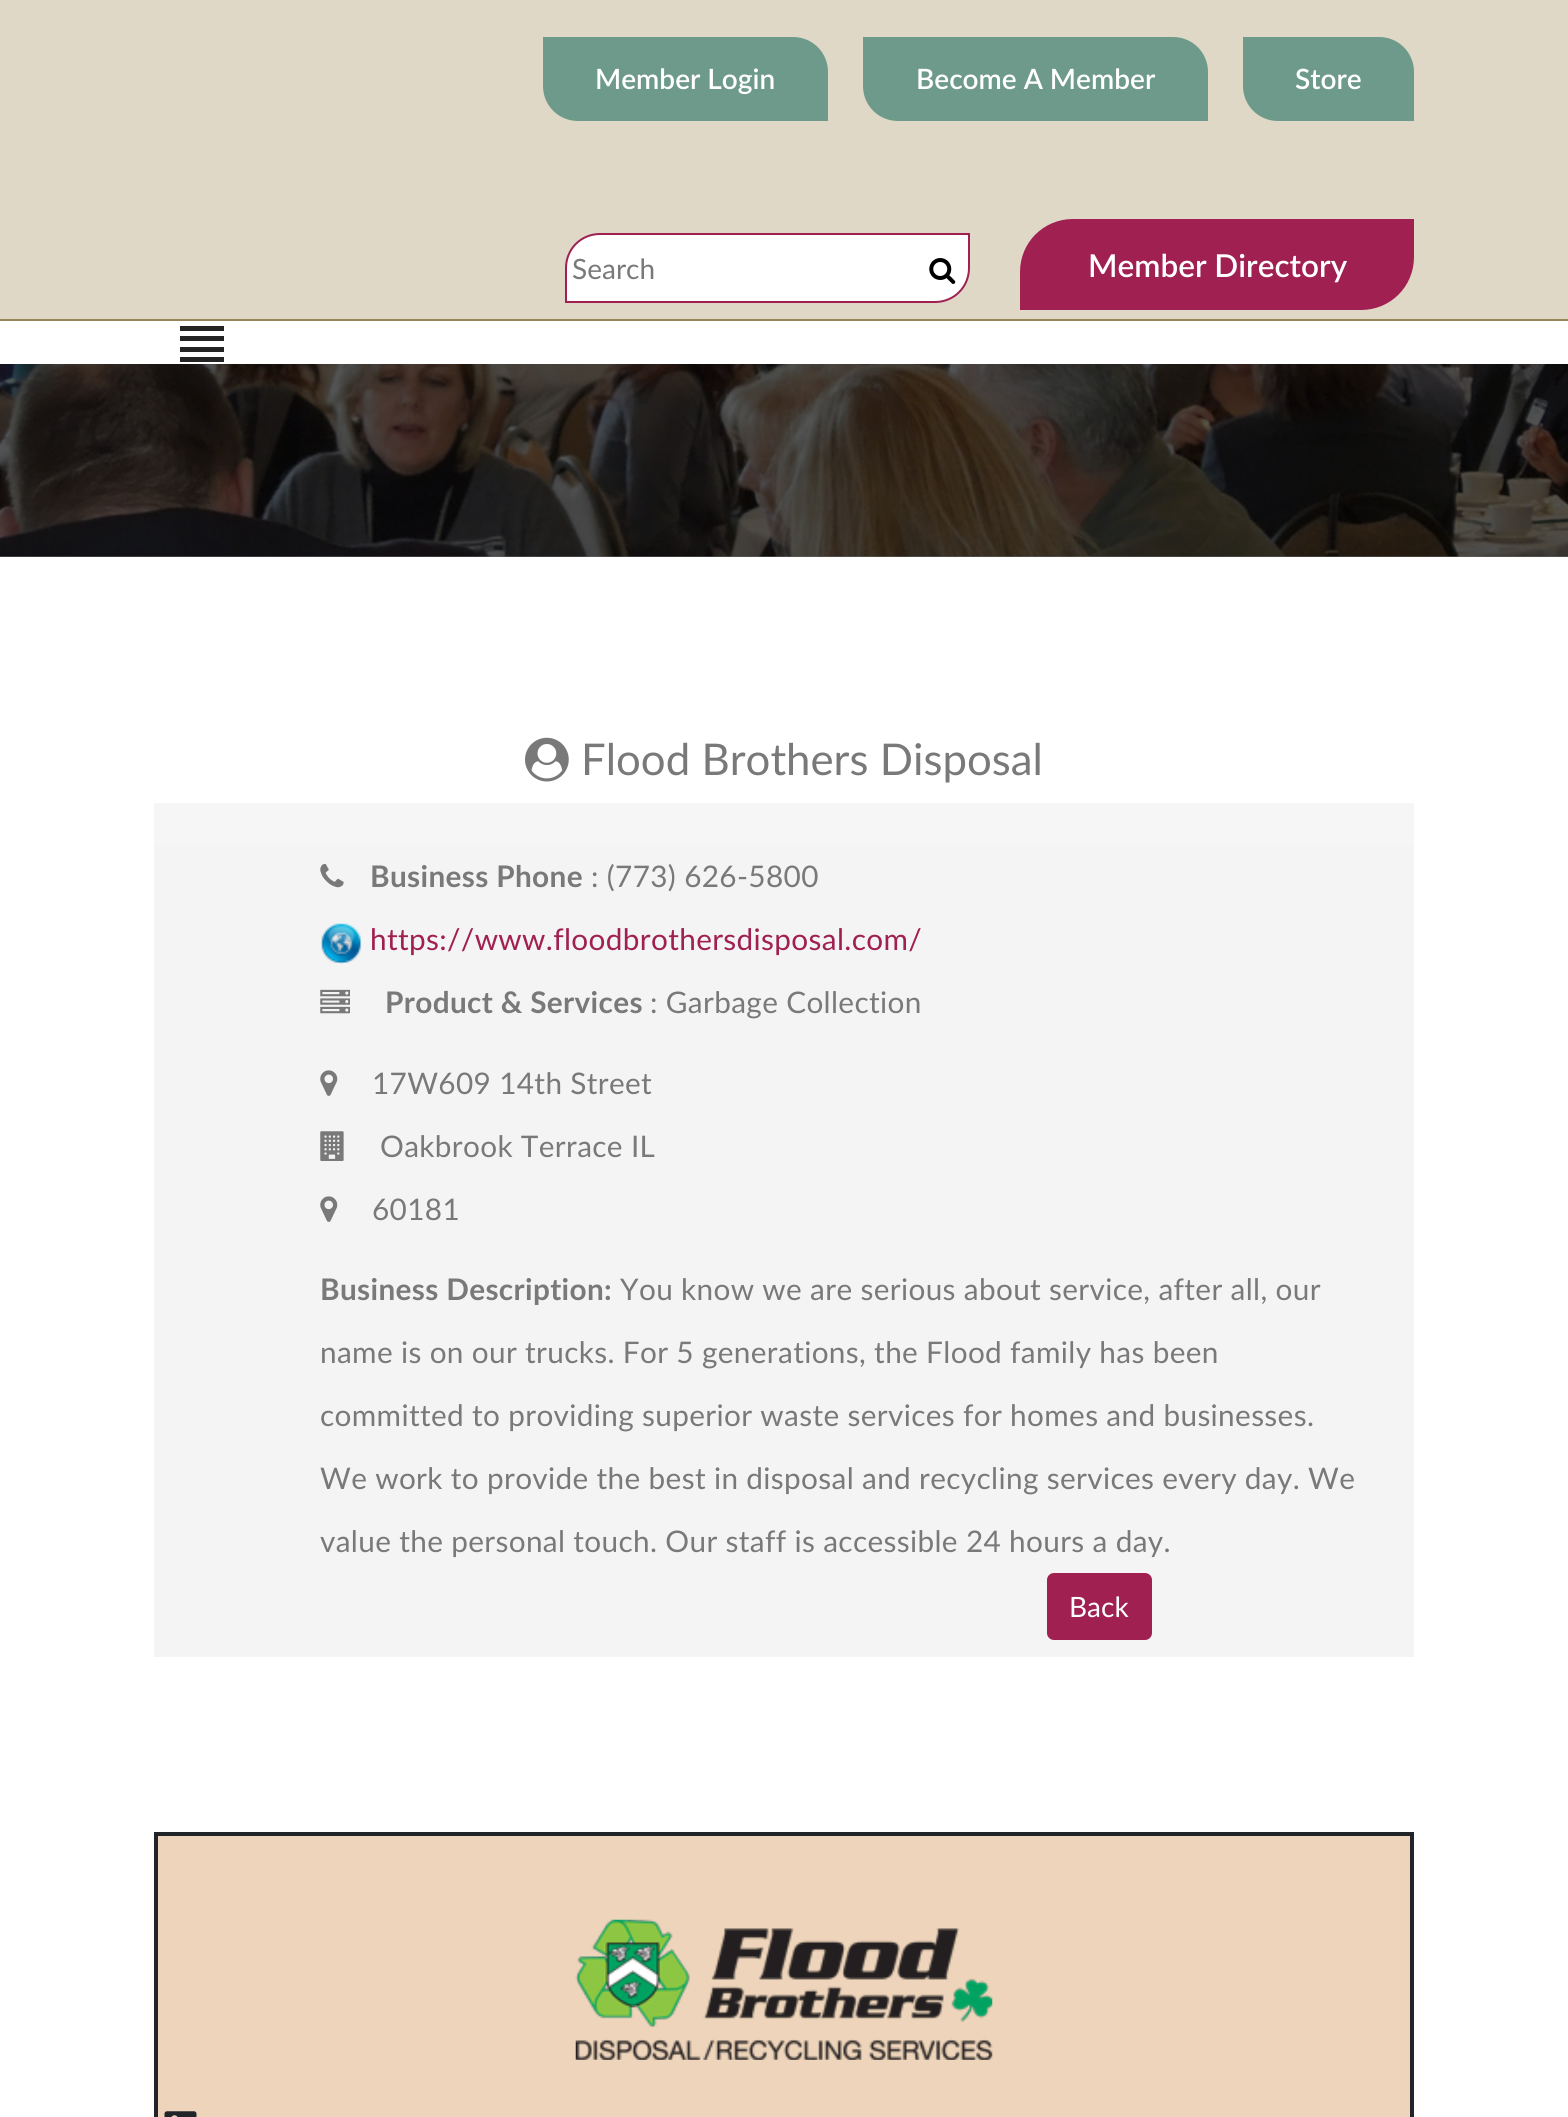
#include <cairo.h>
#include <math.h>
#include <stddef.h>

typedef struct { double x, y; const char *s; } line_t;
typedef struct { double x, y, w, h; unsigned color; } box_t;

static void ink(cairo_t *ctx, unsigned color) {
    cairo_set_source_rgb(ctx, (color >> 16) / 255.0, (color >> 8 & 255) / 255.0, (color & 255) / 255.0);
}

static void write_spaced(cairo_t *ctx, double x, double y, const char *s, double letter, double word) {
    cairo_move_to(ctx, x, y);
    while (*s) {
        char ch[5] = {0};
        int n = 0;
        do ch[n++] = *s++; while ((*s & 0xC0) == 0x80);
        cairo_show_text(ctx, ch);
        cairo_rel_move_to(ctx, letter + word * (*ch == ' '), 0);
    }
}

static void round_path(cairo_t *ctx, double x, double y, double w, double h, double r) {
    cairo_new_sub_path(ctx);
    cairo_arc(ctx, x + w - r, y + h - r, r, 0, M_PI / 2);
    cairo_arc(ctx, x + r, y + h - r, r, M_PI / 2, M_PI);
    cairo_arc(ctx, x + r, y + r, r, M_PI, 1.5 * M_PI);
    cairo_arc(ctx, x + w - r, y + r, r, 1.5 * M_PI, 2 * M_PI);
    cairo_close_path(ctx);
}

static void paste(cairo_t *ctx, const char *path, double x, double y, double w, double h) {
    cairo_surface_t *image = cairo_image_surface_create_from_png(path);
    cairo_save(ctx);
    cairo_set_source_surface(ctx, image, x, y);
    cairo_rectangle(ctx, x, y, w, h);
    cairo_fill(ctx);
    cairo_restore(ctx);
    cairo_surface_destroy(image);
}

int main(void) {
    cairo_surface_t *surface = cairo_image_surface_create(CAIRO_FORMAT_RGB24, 1568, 2117);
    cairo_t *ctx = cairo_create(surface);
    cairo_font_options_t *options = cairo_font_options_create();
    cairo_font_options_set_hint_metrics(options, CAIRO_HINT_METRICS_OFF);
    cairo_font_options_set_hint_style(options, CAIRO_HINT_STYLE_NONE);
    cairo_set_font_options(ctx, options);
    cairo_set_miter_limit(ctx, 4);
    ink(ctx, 0xFFFFFF);
    cairo_paint(ctx);
    {
        static const box_t items[] = {
            {0, 556, 1568, 1, 0x666666},
            {0, 0, 1568, 319, 0xDFD8C7},
            {0, 319, 1568, 2, 0x978458},
        };
        for (size_t i = 0; i < sizeof items / sizeof *items; i++) {
            ink(ctx, items[i].color);
            cairo_rectangle(ctx, items[i].x, items[i].y, items[i].w, items[i].h);
            cairo_fill(ctx);
        }
    }
    ink(ctx, 0x6E9A8C);
    cairo_new_path(ctx);
    cairo_move_to(ctx, 543, 37);
    cairo_line_to(ctx, 793, 37);
    cairo_curve_to(ctx, 812.5, 37, 828, 52.5, 828, 72);
    cairo_line_to(ctx, 828, 121);
    cairo_line_to(ctx, 578, 121);
    cairo_curve_to(ctx, 558.5, 121, 543, 105.5, 543, 86);
    cairo_close_path(ctx);
    cairo_fill(ctx);
    cairo_select_font_face(ctx, "Lato SemiBold", CAIRO_FONT_SLANT_NORMAL, CAIRO_FONT_WEIGHT_NORMAL);
    cairo_set_font_size(ctx, 28);
    ink(ctx, 0xFFFFFF);
    cairo_move_to(ctx, 595, 89);
    cairo_show_text(ctx, "Member Login");
    ink(ctx, 0x6E9A8C);
    cairo_new_path(ctx);
    cairo_move_to(ctx, 863, 37);
    cairo_line_to(ctx, 1173, 37);
    cairo_curve_to(ctx, 1192.5, 37, 1208, 52.5, 1208, 72);
    cairo_line_to(ctx, 1208, 121);
    cairo_line_to(ctx, 898, 121);
    cairo_curve_to(ctx, 878.5, 121, 863, 105.5, 863, 86);
    cairo_close_path(ctx);
    cairo_fill(ctx);
    ink(ctx, 0xFFFFFF);
    cairo_move_to(ctx, 916, 89);
    cairo_show_text(ctx, "Become A Member");
    ink(ctx, 0x6E9A8C);
    cairo_new_path(ctx);
    cairo_move_to(ctx, 1243, 37);
    cairo_line_to(ctx, 1379, 37);
    cairo_curve_to(ctx, 1398.5, 37, 1414, 52.5, 1414, 72);
    cairo_line_to(ctx, 1414, 121);
    cairo_line_to(ctx, 1278, 121);
    cairo_curve_to(ctx, 1258.5, 121, 1243, 105.5, 1243, 86);
    cairo_close_path(ctx);
    cairo_fill(ctx);
    ink(ctx, 0xFFFFFF);
    cairo_move_to(ctx, 1295, 89);
    cairo_show_text(ctx, "Store");
    cairo_new_path(ctx);
    cairo_move_to(ctx, 600, 234);
    cairo_line_to(ctx, 969, 234);
    cairo_line_to(ctx, 969, 268);
    cairo_curve_to(ctx, 969, 287, 954, 302, 935, 302);
    cairo_line_to(ctx, 566, 302);
    cairo_line_to(ctx, 566, 268);
    cairo_curve_to(ctx, 566, 249, 581, 234, 600, 234);
    cairo_close_path(ctx);
    cairo_fill_preserve(ctx);
    ink(ctx, 0xA02051);
    cairo_stroke(ctx);
    cairo_select_font_face(ctx, "Lato", CAIRO_FONT_SLANT_NORMAL, CAIRO_FONT_WEIGHT_NORMAL);
    ink(ctx, 0x797979);
    cairo_move_to(ctx, 572, 279);
    cairo_show_text(ctx, "Search");
    paste(ctx, "media/1.png", 929, 258, 27, 26);
    ink(ctx, 0xA02051);
    cairo_new_path(ctx);
    cairo_move_to(ctx, 1073, 219);
    cairo_line_to(ctx, 1414, 219);
    cairo_line_to(ctx, 1414, 257);
    cairo_curve_to(ctx, 1414, 286.5, 1390.5, 310, 1361, 310);
    cairo_line_to(ctx, 1020, 310);
    cairo_line_to(ctx, 1020, 272);
    cairo_curve_to(ctx, 1020, 242.5, 1043.5, 219, 1073, 219);
    cairo_close_path(ctx);
    cairo_fill(ctx);
    cairo_select_font_face(ctx, "Lato SemiBold", CAIRO_FONT_SLANT_NORMAL, CAIRO_FONT_WEIGHT_NORMAL);
    cairo_set_font_size(ctx, 31.5);
    ink(ctx, 0xFFFFFF);
    cairo_move_to(ctx, 1088, 277);
    cairo_show_text(ctx, "Member Directory");
    {
        static const box_t items[] = {
            {180, 326, 44, 5, 0x242424},
            {180, 336, 44, 5, 0x242424},
            {180, 347, 44, 5, 0x242424},
            {180, 357, 44, 5, 0x242424},
        };
        for (size_t i = 0; i < sizeof items / sizeof *items; i++) {
            ink(ctx, items[i].color);
            cairo_rectangle(ctx, items[i].x, items[i].y, items[i].w, items[i].h);
            cairo_fill(ctx);
        }
    }
    paste(ctx, "media/2.png", 0, 364, 1568, 193);
    paste(ctx, "media/3.png", 525, 737, 44, 45);
    cairo_select_font_face(ctx, "Lato", CAIRO_FONT_SLANT_NORMAL, CAIRO_FONT_WEIGHT_NORMAL);
    cairo_set_font_size(ctx, 43.75);
    ink(ctx, 0x797979);
    cairo_move_to(ctx, 581, 775);
    cairo_show_text(ctx, "Flood Brothers Disposal");
    ink(ctx, 0xF6F6F6);
    cairo_rectangle(ctx, 154, 803, 1260, 42);
    cairo_fill(ctx);
    ink(ctx, 0xF4F4F4);
    cairo_rectangle(ctx, 154, 845, 1260, 812);
    cairo_fill(ctx);
    paste(ctx, "media/4.png", 320, 863, 24, 25);
    cairo_select_font_face(ctx, "Lato", CAIRO_FONT_SLANT_NORMAL, CAIRO_FONT_WEIGHT_BOLD);
    cairo_set_font_size(ctx, 29.75);
    ink(ctx, 0x797979);
    write_spaced(ctx, 370, 887, "Business Phone", 0.35, 0);
    cairo_select_font_face(ctx, "Lato", CAIRO_FONT_SLANT_NORMAL, CAIRO_FONT_WEIGHT_NORMAL);
    write_spaced(ctx, 591, 887, ": (773) 626-5800", 0.35, 0);
    paste(ctx, "media/5.png", 321, 923, 41, 41);
    ink(ctx, 0xA02051);
    write_spaced(ctx, 370, 950, "https://www.floodbrothersdisposal.com/", 0.35, 0);
    paste(ctx, "media/6.png", 320, 989, 30, 25);
    cairo_select_font_face(ctx, "Lato", CAIRO_FONT_SLANT_NORMAL, CAIRO_FONT_WEIGHT_BOLD);
    ink(ctx, 0x797979);
    write_spaced(ctx, 385, 1013, "Product & Services", 0.35, 0);
    cairo_select_font_face(ctx, "Lato", CAIRO_FONT_SLANT_NORMAL, CAIRO_FONT_WEIGHT_NORMAL);
    write_spaced(ctx, 650, 1013, ": Garbage Collection", 0.35, 0);
    paste(ctx, "media/7.png", 320, 1070, 18, 26);
    write_spaced(ctx, 372, 1094, "17W609 14th Street", 0.35, 0);
    paste(ctx, "media/8.png", 320, 1131, 24, 30);
    write_spaced(ctx, 380, 1157, "Oakbrook Terrace IL", 0.35, 0);
    paste(ctx, "media/7.png", 320, 1196, 18, 26);
    write_spaced(ctx, 372, 1220, "60181", 0.35, 0);
    cairo_select_font_face(ctx, "Lato", CAIRO_FONT_SLANT_NORMAL, CAIRO_FONT_WEIGHT_BOLD);
    write_spaced(ctx, 320, 1300, "Business Description:", 0.35, 0);
    cairo_select_font_face(ctx, "Lato", CAIRO_FONT_SLANT_NORMAL, CAIRO_FONT_WEIGHT_NORMAL);
    {
        static const line_t items[] = {
            {620, 1300, "You know we are serious about service, after all, our"},
            {320, 1363, "name is on our trucks. For 5 generations, the Flood family has been"},
            {320, 1426, "committed to providing superior waste services for homes and businesses."},
            {320, 1489, "We work to provide the best in disposal and recycling services every day. We"},
            {320, 1552, "value the personal touch. Our staff is accessible 24 hours a day."},
        };
        for (size_t i = 0; i < sizeof items / sizeof *items; i++) {
            write_spaced(ctx, items[i].x, items[i].y, items[i].s, 0.35, 0);
        }
    }
    ink(ctx, 0xA02051);
    round_path(ctx, 1047, 1573, 105, 67, 7);
    cairo_fill(ctx);
    cairo_set_font_size(ctx, 28);
    ink(ctx, 0xFFFFFF);
    cairo_move_to(ctx, 1069, 1617);
    cairo_show_text(ctx, "Back");
    ink(ctx, 0xEDD4BA);
    cairo_rectangle(ctx, 156, 1834, 1256, 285);
    cairo_fill_preserve(ctx);
    ink(ctx, 0x212529);
    cairo_set_line_width(ctx, 4);
    cairo_stroke(ctx);
    paste(ctx, "media/9.png", 575, 1919, 418, 141);
    paste(ctx, "media/10.png", 164, 2111, 33, 6);
    cairo_surface_write_to_png(surface, "image.png");
    cairo_font_options_destroy(options);
    cairo_destroy(ctx);
    cairo_surface_destroy(surface);
    return 0;
}
